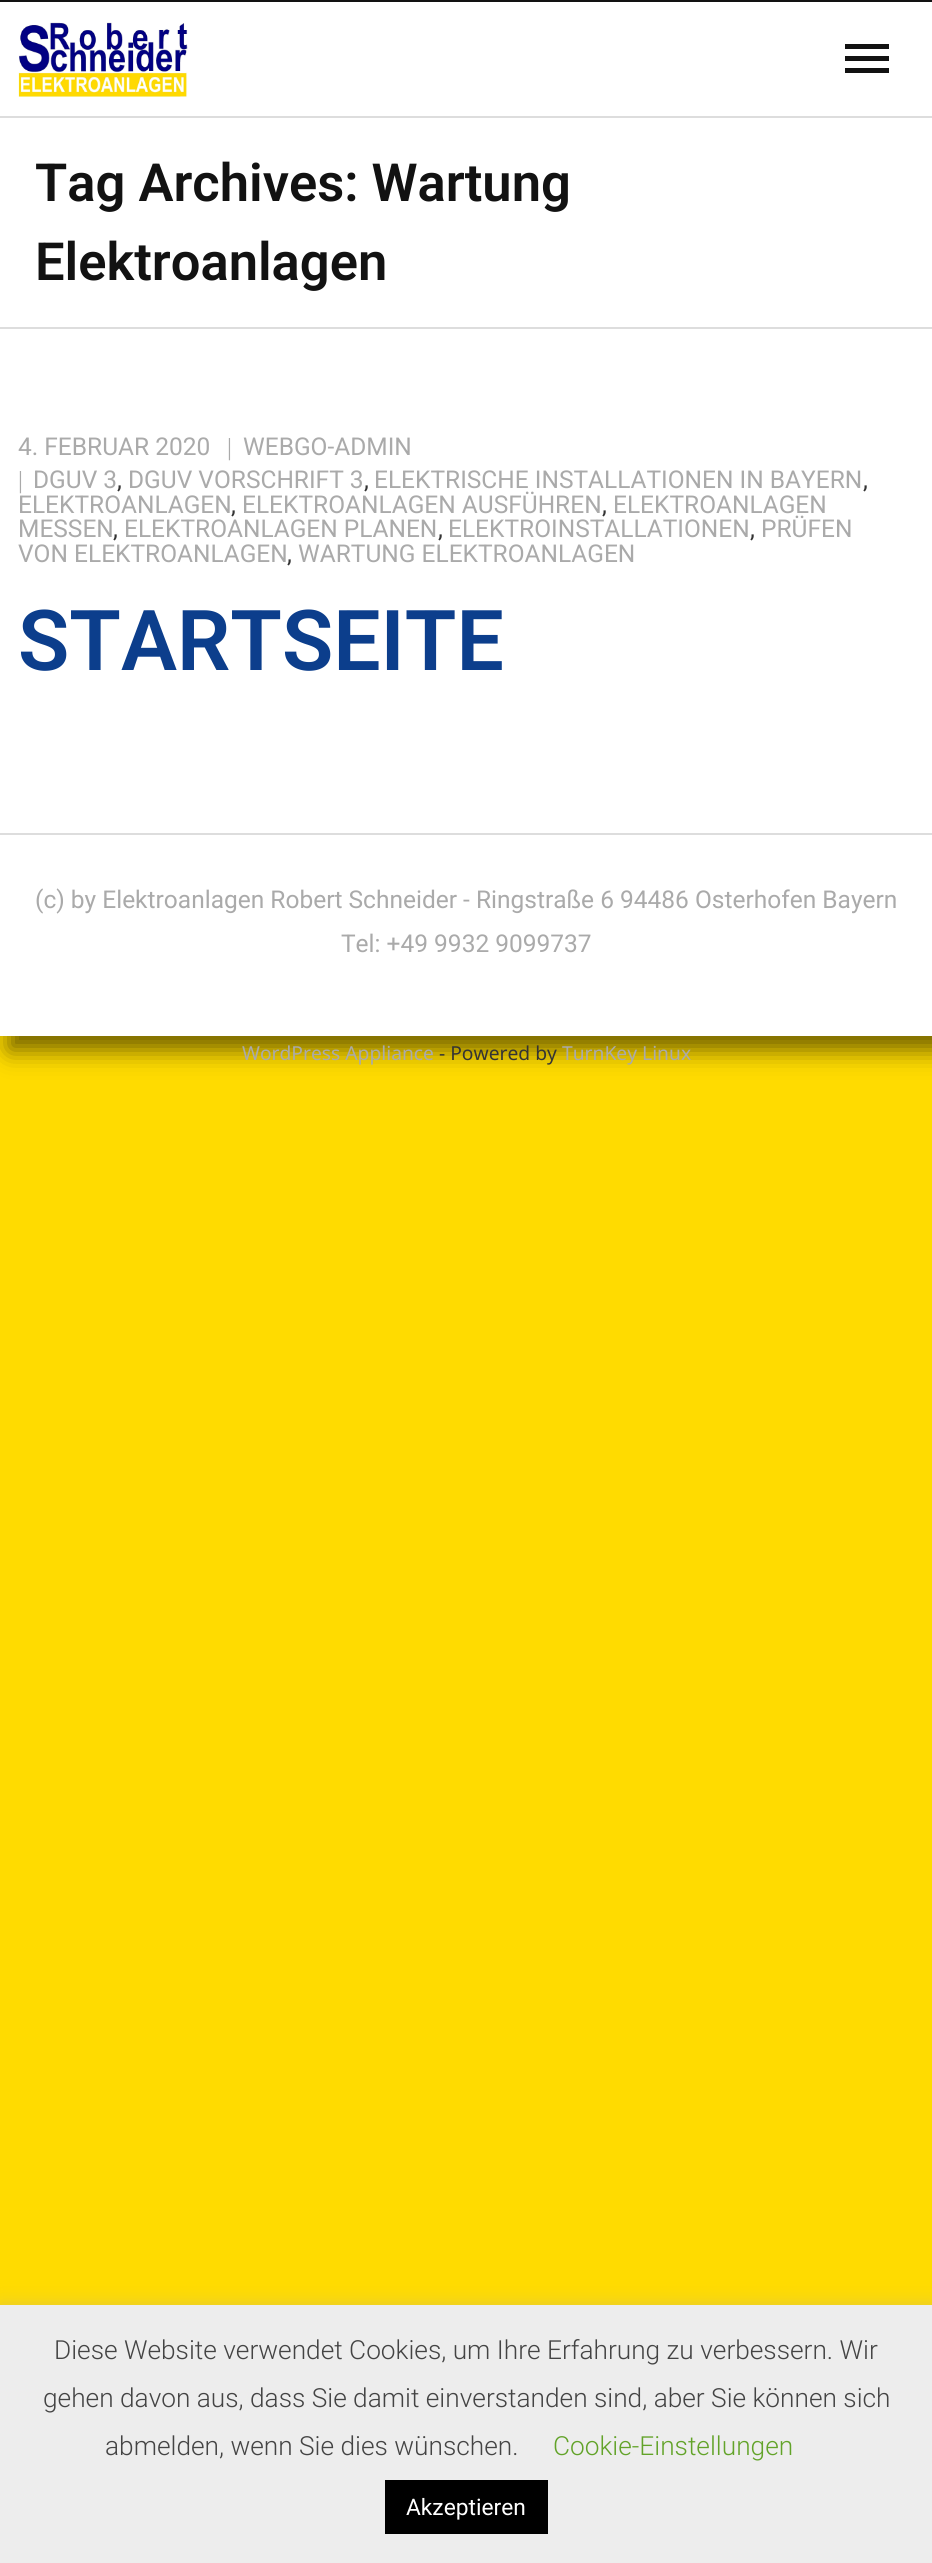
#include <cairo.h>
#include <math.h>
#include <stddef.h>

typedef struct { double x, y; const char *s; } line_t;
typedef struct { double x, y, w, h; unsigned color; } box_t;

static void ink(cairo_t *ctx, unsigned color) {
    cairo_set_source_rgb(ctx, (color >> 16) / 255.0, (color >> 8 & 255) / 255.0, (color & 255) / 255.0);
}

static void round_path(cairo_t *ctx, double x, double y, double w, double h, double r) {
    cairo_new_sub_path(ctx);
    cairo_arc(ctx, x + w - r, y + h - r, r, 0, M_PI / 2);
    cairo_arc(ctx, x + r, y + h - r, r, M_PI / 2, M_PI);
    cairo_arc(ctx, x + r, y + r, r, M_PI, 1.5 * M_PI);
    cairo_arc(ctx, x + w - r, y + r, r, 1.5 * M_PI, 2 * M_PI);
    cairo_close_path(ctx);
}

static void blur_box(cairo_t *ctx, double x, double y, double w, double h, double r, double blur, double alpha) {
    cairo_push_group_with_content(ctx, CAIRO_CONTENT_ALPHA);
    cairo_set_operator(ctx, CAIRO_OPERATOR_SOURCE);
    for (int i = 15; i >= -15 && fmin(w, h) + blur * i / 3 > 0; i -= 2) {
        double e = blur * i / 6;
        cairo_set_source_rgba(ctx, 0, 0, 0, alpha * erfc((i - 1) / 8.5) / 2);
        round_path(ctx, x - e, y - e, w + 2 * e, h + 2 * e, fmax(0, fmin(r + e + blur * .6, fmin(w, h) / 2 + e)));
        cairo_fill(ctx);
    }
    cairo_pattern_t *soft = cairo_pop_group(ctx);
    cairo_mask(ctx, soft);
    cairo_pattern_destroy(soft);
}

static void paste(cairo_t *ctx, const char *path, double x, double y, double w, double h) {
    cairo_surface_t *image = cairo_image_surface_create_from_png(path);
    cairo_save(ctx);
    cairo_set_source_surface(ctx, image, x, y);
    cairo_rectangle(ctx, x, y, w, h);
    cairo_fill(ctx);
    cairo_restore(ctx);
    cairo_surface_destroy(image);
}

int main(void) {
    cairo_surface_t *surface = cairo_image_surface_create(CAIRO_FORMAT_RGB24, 932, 2563);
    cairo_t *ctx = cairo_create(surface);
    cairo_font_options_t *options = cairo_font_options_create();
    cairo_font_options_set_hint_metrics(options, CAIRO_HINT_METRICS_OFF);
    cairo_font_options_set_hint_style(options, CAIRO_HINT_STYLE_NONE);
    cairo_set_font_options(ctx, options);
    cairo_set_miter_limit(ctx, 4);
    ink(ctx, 0xFFDB00);
    cairo_paint(ctx);
    ink(ctx, 0x000000);
    blur_box(ctx, 9, 11, 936, 1039, 0, 12, 0.56);
    {
        static const box_t items[] = {
            {0, 2, 932, 1034, 0xFFFFFF},
            {0, 0, 932, 2, 0x121212},
            {0, 116, 932, 2, 0xDDDDDD},
        };
        for (size_t i = 0; i < sizeof items / sizeof *items; i++) {
            ink(ctx, items[i].color);
            cairo_rectangle(ctx, items[i].x, items[i].y, items[i].w, items[i].h);
            cairo_fill(ctx);
        }
    }
    paste(ctx, "media/1.png", 18, 22, 170, 75);
    {
        static const box_t items[] = {
            {845, 44, 44, 5, 0x121212},
            {845, 56, 44, 5, 0x121212},
            {845, 68, 44, 5, 0x121212},
            {0, 327, 932, 2, 0xDDDDDD},
        };
        for (size_t i = 0; i < sizeof items / sizeof *items; i++) {
            ink(ctx, items[i].color);
            cairo_rectangle(ctx, items[i].x, items[i].y, items[i].w, items[i].h);
            cairo_fill(ctx);
        }
    }
    cairo_select_font_face(ctx, "Roboto SemiBold", CAIRO_FONT_SLANT_NORMAL, CAIRO_FONT_WEIGHT_NORMAL);
    cairo_set_font_size(ctx, 52.5);
    ink(ctx, 0x121212);
    cairo_move_to(ctx, 35, 201);
    cairo_show_text(ctx, "Tag Archives: Wartung");
    cairo_move_to(ctx, 35, 280);
    cairo_show_text(ctx, "Elektroanlagen");
    cairo_select_font_face(ctx, "Roboto", CAIRO_FONT_SLANT_NORMAL, CAIRO_FONT_WEIGHT_NORMAL);
    cairo_set_font_size(ctx, 24.5);
    ink(ctx, 0xAAAAAA);
    cairo_move_to(ctx, 18, 455);
    cairo_show_text(ctx, "4. FEBRUAR 2020");
    cairo_select_font_face(ctx, "Liberation Serif", CAIRO_FONT_SLANT_NORMAL, CAIRO_FONT_WEIGHT_NORMAL);
    cairo_move_to(ctx, 227, 455);
    cairo_show_text(ctx, "|");
    cairo_select_font_face(ctx, "Roboto", CAIRO_FONT_SLANT_NORMAL, CAIRO_FONT_WEIGHT_NORMAL);
    cairo_move_to(ctx, 243, 455);
    cairo_show_text(ctx, "WEBGO-ADMIN");
    cairo_select_font_face(ctx, "Liberation Serif", CAIRO_FONT_SLANT_NORMAL, CAIRO_FONT_WEIGHT_NORMAL);
    cairo_move_to(ctx, 18, 488);
    cairo_show_text(ctx, "|");
    cairo_select_font_face(ctx, "Roboto", CAIRO_FONT_SLANT_NORMAL, CAIRO_FONT_WEIGHT_NORMAL);
    cairo_move_to(ctx, 33, 488);
    cairo_show_text(ctx, "DGUV 3");
    ink(ctx, 0x343434);
    cairo_move_to(ctx, 117, 488);
    cairo_show_text(ctx, ",");
    ink(ctx, 0xAAAAAA);
    cairo_move_to(ctx, 128, 488);
    cairo_show_text(ctx, "DGUV VORSCHRIFT 3");
    ink(ctx, 0x343434);
    cairo_move_to(ctx, 364, 488);
    cairo_show_text(ctx, ",");
    ink(ctx, 0xAAAAAA);
    cairo_move_to(ctx, 374, 488);
    cairo_show_text(ctx, "ELEKTRISCHE INSTALLATIONEN IN BAYERN");
    ink(ctx, 0x343434);
    cairo_move_to(ctx, 863, 488);
    cairo_show_text(ctx, ",");
    ink(ctx, 0xAAAAAA);
    cairo_move_to(ctx, 18, 513);
    cairo_show_text(ctx, "ELEKTROANLAGEN");
    ink(ctx, 0x343434);
    cairo_move_to(ctx, 231, 513);
    cairo_show_text(ctx, ",");
    ink(ctx, 0xAAAAAA);
    cairo_move_to(ctx, 242, 513);
    cairo_show_text(ctx, "ELEKTROANLAGEN AUSFÜHREN");
    ink(ctx, 0x343434);
    cairo_move_to(ctx, 602, 513);
    cairo_show_text(ctx, ",");
    ink(ctx, 0xAAAAAA);
    cairo_move_to(ctx, 613, 513);
    cairo_show_text(ctx, "ELEKTROANLAGEN");
    cairo_move_to(ctx, 18, 537);
    cairo_show_text(ctx, "MESSEN");
    ink(ctx, 0x343434);
    cairo_move_to(ctx, 113, 537);
    cairo_show_text(ctx, ",");
    ink(ctx, 0xAAAAAA);
    cairo_move_to(ctx, 124, 537);
    cairo_show_text(ctx, "ELEKTROANLAGEN PLANEN");
    ink(ctx, 0x343434);
    cairo_move_to(ctx, 438, 537);
    cairo_show_text(ctx, ",");
    ink(ctx, 0xAAAAAA);
    cairo_move_to(ctx, 448, 537);
    cairo_show_text(ctx, "ELEKTROINSTALLATIONEN");
    ink(ctx, 0x343434);
    cairo_move_to(ctx, 750, 537);
    cairo_show_text(ctx, ",");
    ink(ctx, 0xAAAAAA);
    cairo_move_to(ctx, 761, 537);
    cairo_show_text(ctx, "PRÜFEN");
    cairo_move_to(ctx, 18, 562);
    cairo_show_text(ctx, "VON ELEKTROANLAGEN");
    ink(ctx, 0x343434);
    cairo_move_to(ctx, 287, 562);
    cairo_show_text(ctx, ",");
    ink(ctx, 0xAAAAAA);
    cairo_move_to(ctx, 298, 562);
    cairo_show_text(ctx, "WARTUNG ELEKTROANLAGEN");
    cairo_select_font_face(ctx, "Roboto SemiBold", CAIRO_FONT_SLANT_NORMAL, CAIRO_FONT_WEIGHT_NORMAL);
    cairo_set_font_size(ctx, 84);
    ink(ctx, 0x0C3E8C);
    cairo_move_to(ctx, 18, 670);
    cairo_show_text(ctx, "STARTSEITE");
    ink(ctx, 0xDDDDDD);
    cairo_rectangle(ctx, 0, 833, 932, 2);
    cairo_fill(ctx);
    cairo_select_font_face(ctx, "Roboto", CAIRO_FONT_SLANT_NORMAL, CAIRO_FONT_WEIGHT_NORMAL);
    cairo_set_font_size(ctx, 24.5);
    ink(ctx, 0xAAAAAA);
    cairo_move_to(ctx, 35, 908);
    cairo_show_text(ctx, "(c) by Elektroanlagen Robert Schneider - Ringstraße 6 94486 Osterhofen Bayern");
    cairo_move_to(ctx, 341, 952);
    cairo_show_text(ctx, "Tel: +49 9932 9099737");
    cairo_select_font_face(ctx, "Noto Sans", CAIRO_FONT_SLANT_NORMAL, CAIRO_FONT_WEIGHT_NORMAL);
    cairo_set_font_size(ctx, 19.25);
    cairo_move_to(ctx, 242, 1060);
    cairo_show_text(ctx, "WordPress Appliance");
    ink(ctx, 0x343434);
    cairo_move_to(ctx, 439, 1060);
    cairo_show_text(ctx, "- Powered by");
    ink(ctx, 0xAAAAAA);
    cairo_move_to(ctx, 562, 1060);
    cairo_show_text(ctx, "TurnKey Linux");
    ink(ctx, 0xACABAB);
    blur_box(ctx, 0, 2303, 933, 259, 0, 9, 0.3);
    ink(ctx, 0xEDEDED);
    cairo_rectangle(ctx, 0, 2305, 932, 258);
    cairo_fill(ctx);
    cairo_select_font_face(ctx, "Roboto Light", CAIRO_FONT_SLANT_NORMAL, CAIRO_FONT_WEIGHT_NORMAL);
    cairo_set_font_size(ctx, 26.25);
    ink(ctx, 0x444444);
    {
        static const line_t items[] = {
            {54, 2359, "Diese Website verwendet Cookies, um Ihre Erfahrung zu verbessern. Wir"},
            {43, 2407, "gehen davon aus, dass Sie damit einverstanden sind, aber Sie können sich"},
            {105, 2455, "abmelden, wenn Sie dies wünschen."},
        };
        for (size_t i = 0; i < sizeof items / sizeof *items; i++) {
            cairo_move_to(ctx, items[i].x, items[i].y);
            cairo_show_text(ctx, items[i].s);
        }
    }
    ink(ctx, 0x62A329);
    cairo_move_to(ctx, 553, 2455);
    cairo_show_text(ctx, "Cookie-Einstellungen");
    ink(ctx, 0x000000);
    cairo_rectangle(ctx, 385, 2480, 163, 54);
    cairo_fill(ctx);
    cairo_select_font_face(ctx, "Roboto", CAIRO_FONT_SLANT_NORMAL, CAIRO_FONT_WEIGHT_NORMAL);
    cairo_set_font_size(ctx, 22.75);
    ink(ctx, 0xFFFFFF);
    cairo_move_to(ctx, 406, 2515);
    cairo_show_text(ctx, "Akzeptieren");
    cairo_surface_write_to_png(surface, "image.png");
    cairo_font_options_destroy(options);
    cairo_destroy(ctx);
    cairo_surface_destroy(surface);
    return 0;
}
